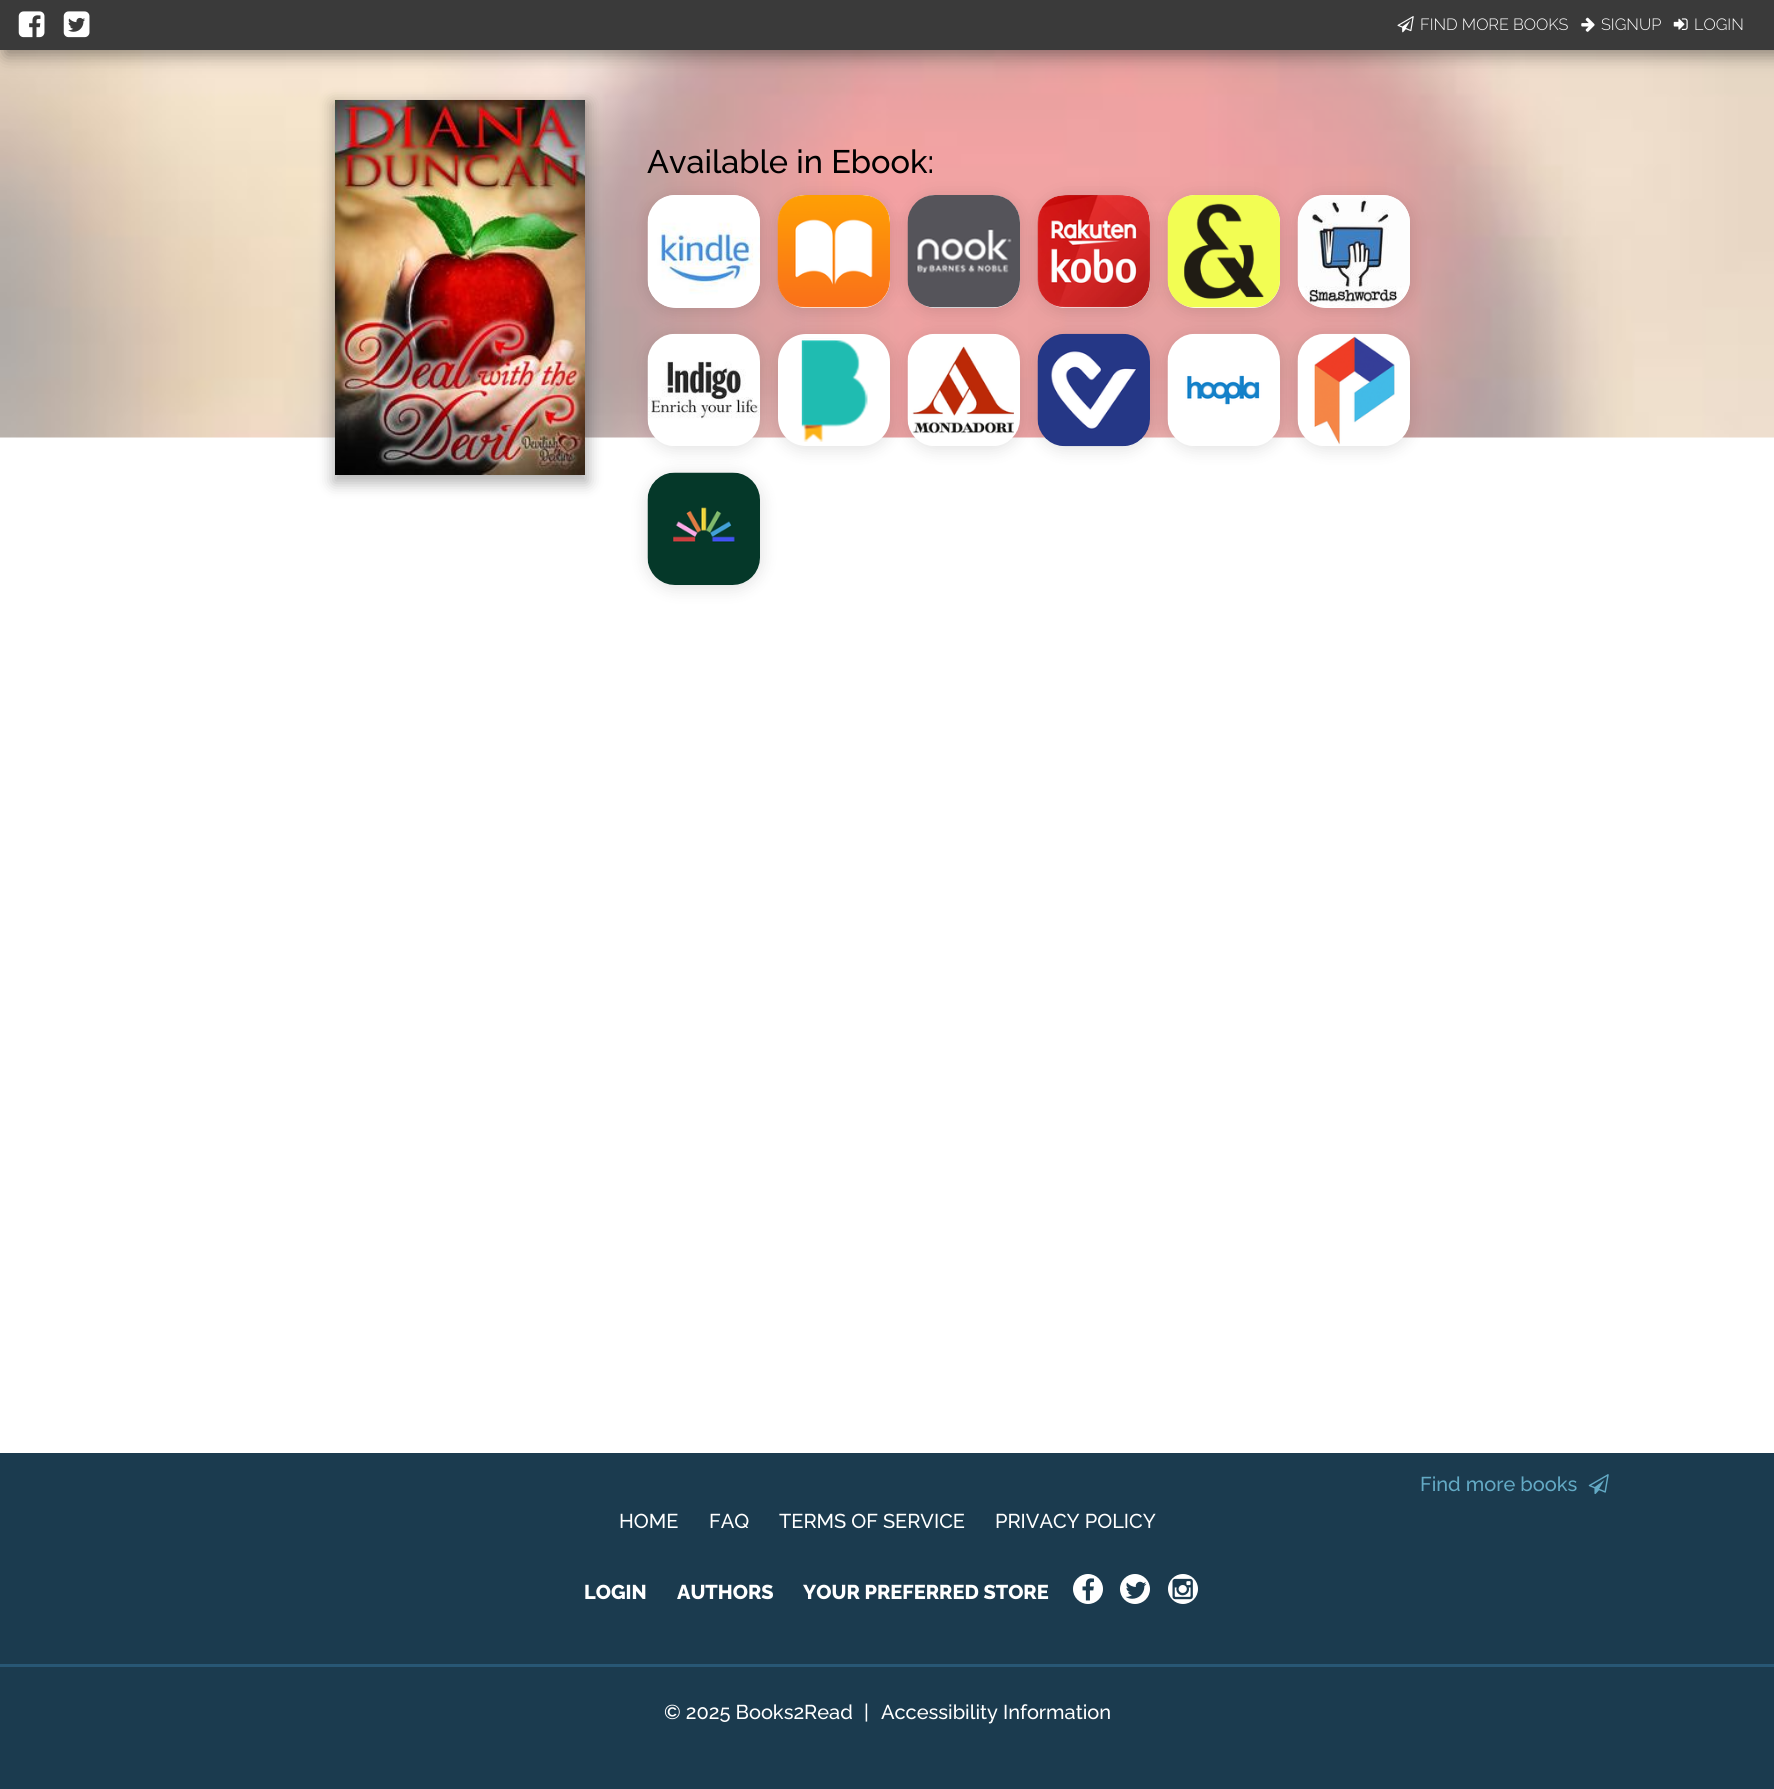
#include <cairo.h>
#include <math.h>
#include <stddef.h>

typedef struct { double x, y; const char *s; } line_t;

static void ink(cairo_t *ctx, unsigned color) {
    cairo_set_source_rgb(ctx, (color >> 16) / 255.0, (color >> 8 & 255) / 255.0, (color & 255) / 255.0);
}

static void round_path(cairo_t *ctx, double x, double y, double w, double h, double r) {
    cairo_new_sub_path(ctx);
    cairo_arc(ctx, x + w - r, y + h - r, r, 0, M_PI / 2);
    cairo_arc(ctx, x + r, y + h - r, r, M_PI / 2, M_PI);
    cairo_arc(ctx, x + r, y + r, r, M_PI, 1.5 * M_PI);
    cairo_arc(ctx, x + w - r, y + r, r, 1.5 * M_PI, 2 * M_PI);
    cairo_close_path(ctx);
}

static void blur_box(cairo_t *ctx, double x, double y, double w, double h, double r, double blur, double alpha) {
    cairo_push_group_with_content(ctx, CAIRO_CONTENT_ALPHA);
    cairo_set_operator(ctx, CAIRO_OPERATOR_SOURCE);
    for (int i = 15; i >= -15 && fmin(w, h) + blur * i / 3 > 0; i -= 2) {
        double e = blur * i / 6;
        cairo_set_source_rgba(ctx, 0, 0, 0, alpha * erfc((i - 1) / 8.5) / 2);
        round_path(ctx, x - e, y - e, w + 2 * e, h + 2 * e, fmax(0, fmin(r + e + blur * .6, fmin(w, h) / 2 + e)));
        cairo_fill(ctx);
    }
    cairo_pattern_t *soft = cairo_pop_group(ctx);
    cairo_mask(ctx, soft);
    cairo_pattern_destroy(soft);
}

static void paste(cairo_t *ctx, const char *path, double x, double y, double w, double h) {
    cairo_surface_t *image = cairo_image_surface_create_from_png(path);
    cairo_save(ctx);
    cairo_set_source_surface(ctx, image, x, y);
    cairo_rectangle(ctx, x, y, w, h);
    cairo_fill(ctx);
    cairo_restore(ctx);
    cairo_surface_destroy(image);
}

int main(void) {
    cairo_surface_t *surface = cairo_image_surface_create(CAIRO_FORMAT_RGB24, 1774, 1789);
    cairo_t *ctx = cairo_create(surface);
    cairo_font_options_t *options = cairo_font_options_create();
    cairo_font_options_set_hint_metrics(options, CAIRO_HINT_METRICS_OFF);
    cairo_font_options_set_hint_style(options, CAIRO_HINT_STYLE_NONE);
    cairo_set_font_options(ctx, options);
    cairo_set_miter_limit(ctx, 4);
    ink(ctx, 0xFFFFFF);
    cairo_paint(ctx);
    paste(ctx, "media/1.png", 0, 50, 1774, 388);
    ink(ctx, 0x000000);
    blur_box(ctx, 5, 5, 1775, 50, 0, 9, 0.4);
    ink(ctx, 0x3A3A3A);
    cairo_rectangle(ctx, 0, 0, 1774, 50);
    cairo_fill(ctx);
    paste(ctx, "media/2.png", 18, 11, 27, 27);
    paste(ctx, "media/3.png", 63, 11, 27, 27);
    paste(ctx, "media/4.png", 1397, 16, 17, 17);
    cairo_select_font_face(ctx, "Raleway Light", CAIRO_FONT_SLANT_NORMAL, CAIRO_FONT_WEIGHT_NORMAL);
    cairo_set_font_size(ctx, 16.25);
    ink(ctx, 0xFFFFFF);
    cairo_move_to(ctx, 1420, 30);
    cairo_show_text(ctx, "FIND MORE BOOKS");
    paste(ctx, "media/5.png", 1581, 17, 14, 15);
    cairo_move_to(ctx, 1601, 30);
    cairo_show_text(ctx, "SIGNUP");
    paste(ctx, "media/6.png", 1673, 18, 15, 12);
    cairo_move_to(ctx, 1694, 30);
    cairo_show_text(ctx, "LOGIN");
    ink(ctx, 0x000000);
    blur_box(ctx, 333, 103, 255, 380, 0, 7.5, 0.3);
    paste(ctx, "media/7.png", 335, 100, 250, 375);
    blur_box(ctx, 645, 195, 118, 118, 30, 7.5, 0.1);
    ink(ctx, 0xFFFFFF);
    round_path(ctx, 648, 195, 112, 113, 28);
    cairo_fill(ctx);
    paste(ctx, "media/8.png", 647, 195, 113, 112);
    ink(ctx, 0x000000);
    blur_box(ctx, 775, 195, 118, 118, 30, 7.5, 0.1);
    ink(ctx, 0xFFFFFF);
    round_path(ctx, 778, 195, 112, 113, 28);
    cairo_fill(ctx);
    paste(ctx, "media/9.png", 777, 195, 113, 113);
    ink(ctx, 0x000000);
    blur_box(ctx, 905, 195, 118, 118, 30, 7.5, 0.1);
    cairo_select_font_face(ctx, "Raleway Medium", CAIRO_FONT_SLANT_NORMAL, CAIRO_FONT_WEIGHT_NORMAL);
    cairo_set_font_size(ctx, 32.5);
    ink(ctx, 0x000000);
    cairo_move_to(ctx, 647, 173);
    cairo_show_text(ctx, "Available in Ebook:");
    ink(ctx, 0xFFFFFF);
    round_path(ctx, 908, 195, 112, 113, 28);
    cairo_fill(ctx);
    paste(ctx, "media/10.png", 907, 195, 113, 113);
    ink(ctx, 0x000000);
    blur_box(ctx, 1035, 195, 118, 118, 30, 7.5, 0.1);
    ink(ctx, 0xFFFFFF);
    round_path(ctx, 1038, 195, 112, 113, 28);
    cairo_fill(ctx);
    paste(ctx, "media/11.png", 1037, 195, 113, 113);
    ink(ctx, 0x000000);
    blur_box(ctx, 1165, 195, 118, 118, 30, 7.5, 0.1);
    ink(ctx, 0xFFFFFF);
    round_path(ctx, 1168, 195, 112, 113, 28);
    cairo_fill(ctx);
    paste(ctx, "media/12.png", 1167, 195, 113, 113);
    ink(ctx, 0x000000);
    blur_box(ctx, 1295, 195, 118, 118, 30, 7.5, 0.1);
    ink(ctx, 0xFFFFFF);
    round_path(ctx, 1298, 195, 112, 113, 28);
    cairo_fill(ctx);
    paste(ctx, "media/13.png", 1297, 195, 113, 112);
    ink(ctx, 0x000000);
    blur_box(ctx, 645, 334, 118, 117, 30, 7.5, 0.1);
    paste(ctx, "media/14.png", 647, 333, 113, 113);
    blur_box(ctx, 775, 334, 118, 117, 30, 7.5, 0.1);
    ink(ctx, 0xFFFFFF);
    round_path(ctx, 778, 334, 112, 112, 28);
    cairo_fill(ctx);
    ink(ctx, 0x000000);
    blur_box(ctx, 905, 334, 118, 117, 30, 7.5, 0.1);
    paste(ctx, "media/15.png", 907, 333, 113, 113);
    blur_box(ctx, 1035, 334, 118, 117, 30, 7.5, 0.1);
    paste(ctx, "media/16.png", 1037, 333, 113, 114);
    blur_box(ctx, 1165, 334, 118, 117, 30, 7.5, 0.1);
    paste(ctx, "media/17.png", 1167, 333, 113, 113);
    blur_box(ctx, 1295, 334, 118, 117, 30, 7.5, 0.1);
    paste(ctx, "media/18.png", 1297, 333, 113, 113);
    paste(ctx, "media/19.png", 801, 338, 67, 104);
    blur_box(ctx, 645, 473, 118, 117, 30, 7.5, 0.1);
    paste(ctx, "media/20.png", 647, 472, 113, 113);
    ink(ctx, 0x1B3B4F);
    cairo_rectangle(ctx, 0, 1453, 1774, 336);
    cairo_fill(ctx);
    cairo_set_font_size(ctx, 20);
    ink(ctx, 0x63AAC5);
    cairo_move_to(ctx, 1420, 1491);
    cairo_show_text(ctx, "Find more books");
    paste(ctx, "media/21.png", 1588, 1474, 21, 20);
    ink(ctx, 0xFFFFFF);
    {
        static const line_t items[] = {
            {619, 1528, "HOME"},
            {709, 1528, "FAQ"},
            {779, 1528, "TERMS OF SERVICE"},
            {995, 1528, "PRIVACY POLICY"},
        };
        for (size_t i = 0; i < sizeof items / sizeof *items; i++) {
            cairo_move_to(ctx, items[i].x, items[i].y);
            cairo_show_text(ctx, items[i].s);
        }
    }
    cairo_select_font_face(ctx, "Raleway ExtraBold", CAIRO_FONT_SLANT_NORMAL, CAIRO_FONT_WEIGHT_NORMAL);
    {
        static const line_t items[] = {
            {584, 1599, "LOGIN"},
            {677, 1599, "AUTHORS"},
            {803, 1599, "YOUR PREFERRED STORE"},
        };
        for (size_t i = 0; i < sizeof items / sizeof *items; i++) {
            cairo_move_to(ctx, items[i].x, items[i].y);
            cairo_show_text(ctx, items[i].s);
        }
    }
    cairo_new_path(ctx);
    cairo_arc(ctx, 1088, 1589, 15, 0, 2 * M_PI);
    cairo_fill(ctx);
    paste(ctx, "media/22.png", 1082, 1578, 12, 23);
    cairo_arc(ctx, 1135, 1589, 15, 0, 2 * M_PI);
    cairo_fill(ctx);
    paste(ctx, "media/23.png", 1125, 1581, 22, 18);
    cairo_arc(ctx, 1183, 1589, 15, 0, 2 * M_PI);
    cairo_fill(ctx);
    paste(ctx, "media/24.png", 1172, 1578, 21, 22);
    ink(ctx, 0x285775);
    cairo_rectangle(ctx, 0, 1664, 1774, 3);
    cairo_fill(ctx);
    cairo_select_font_face(ctx, "Raleway Medium", CAIRO_FONT_SLANT_NORMAL, CAIRO_FONT_WEIGHT_NORMAL);
    ink(ctx, 0xFFFFFF);
    {
        static const line_t items[] = {
            {664, 1719, "© 2025 Books2Read"},
            {864, 1719, "|"},
            {881, 1719, "Accessibility Information"},
        };
        for (size_t i = 0; i < sizeof items / sizeof *items; i++) {
            cairo_move_to(ctx, items[i].x, items[i].y);
            cairo_show_text(ctx, items[i].s);
        }
    }
    cairo_surface_write_to_png(surface, "image.png");
    cairo_font_options_destroy(options);
    cairo_destroy(ctx);
    cairo_surface_destroy(surface);
    return 0;
}
